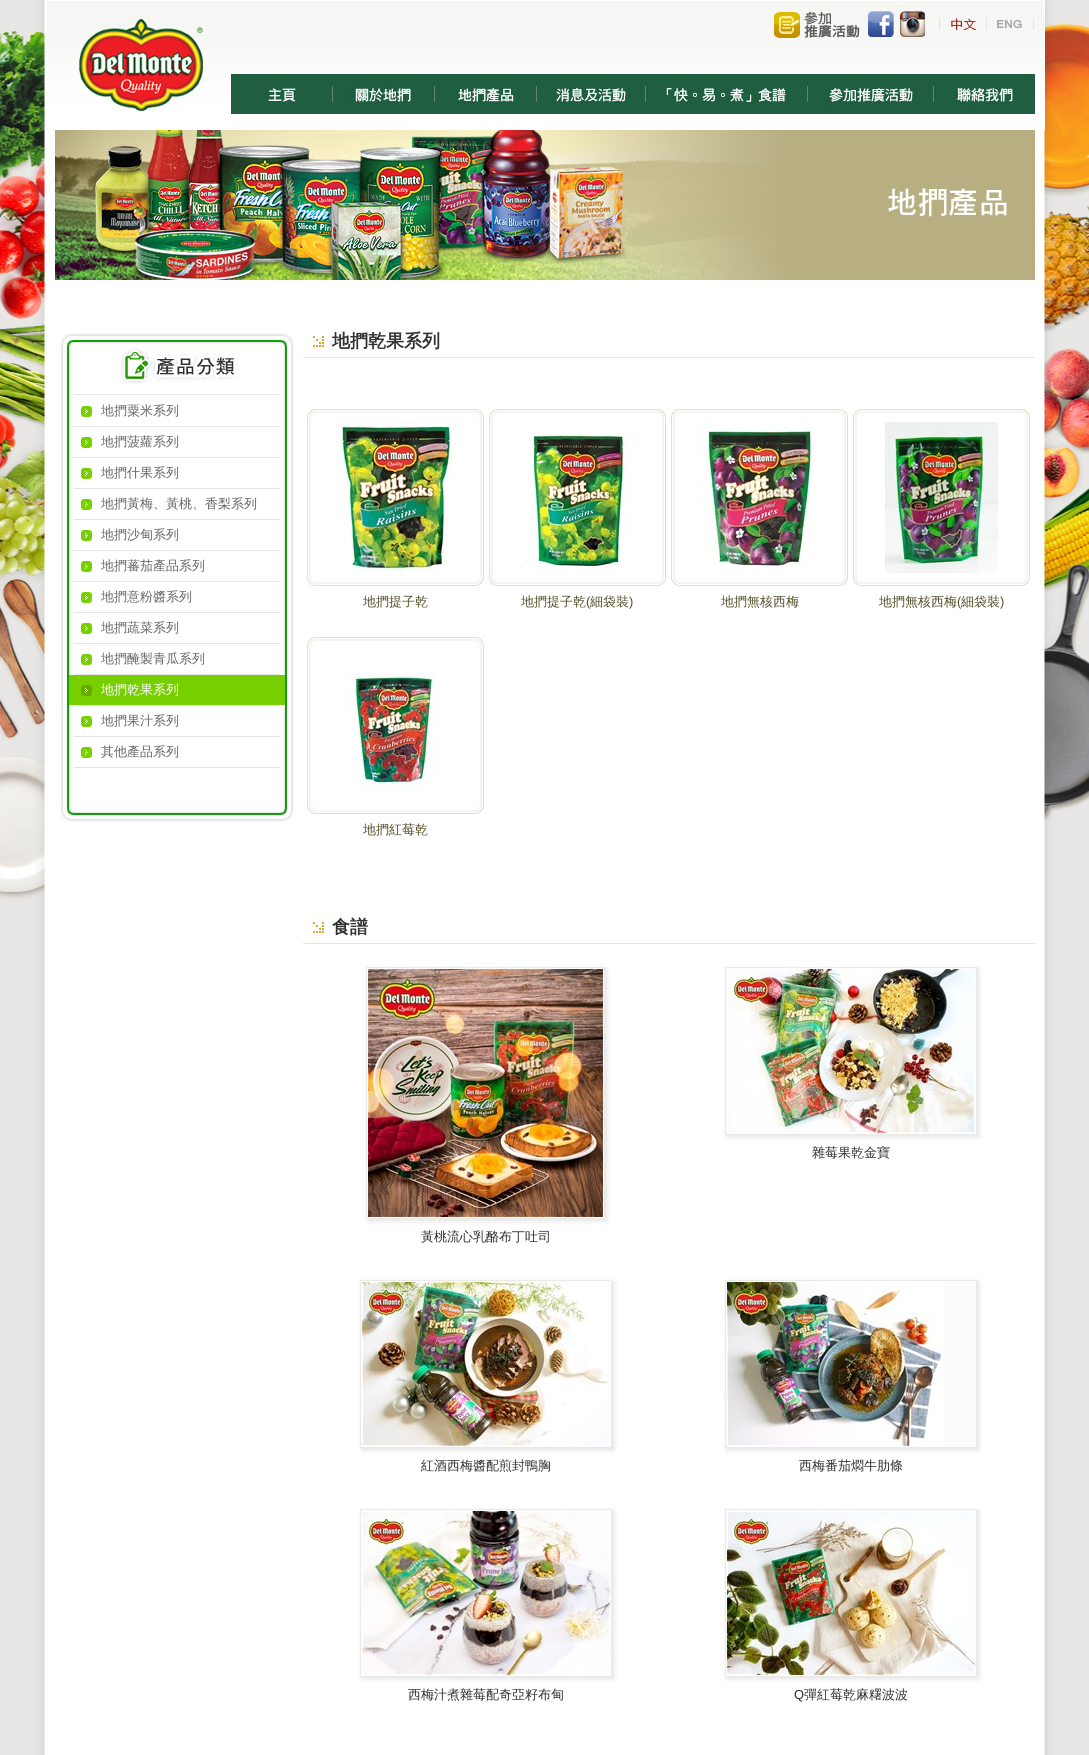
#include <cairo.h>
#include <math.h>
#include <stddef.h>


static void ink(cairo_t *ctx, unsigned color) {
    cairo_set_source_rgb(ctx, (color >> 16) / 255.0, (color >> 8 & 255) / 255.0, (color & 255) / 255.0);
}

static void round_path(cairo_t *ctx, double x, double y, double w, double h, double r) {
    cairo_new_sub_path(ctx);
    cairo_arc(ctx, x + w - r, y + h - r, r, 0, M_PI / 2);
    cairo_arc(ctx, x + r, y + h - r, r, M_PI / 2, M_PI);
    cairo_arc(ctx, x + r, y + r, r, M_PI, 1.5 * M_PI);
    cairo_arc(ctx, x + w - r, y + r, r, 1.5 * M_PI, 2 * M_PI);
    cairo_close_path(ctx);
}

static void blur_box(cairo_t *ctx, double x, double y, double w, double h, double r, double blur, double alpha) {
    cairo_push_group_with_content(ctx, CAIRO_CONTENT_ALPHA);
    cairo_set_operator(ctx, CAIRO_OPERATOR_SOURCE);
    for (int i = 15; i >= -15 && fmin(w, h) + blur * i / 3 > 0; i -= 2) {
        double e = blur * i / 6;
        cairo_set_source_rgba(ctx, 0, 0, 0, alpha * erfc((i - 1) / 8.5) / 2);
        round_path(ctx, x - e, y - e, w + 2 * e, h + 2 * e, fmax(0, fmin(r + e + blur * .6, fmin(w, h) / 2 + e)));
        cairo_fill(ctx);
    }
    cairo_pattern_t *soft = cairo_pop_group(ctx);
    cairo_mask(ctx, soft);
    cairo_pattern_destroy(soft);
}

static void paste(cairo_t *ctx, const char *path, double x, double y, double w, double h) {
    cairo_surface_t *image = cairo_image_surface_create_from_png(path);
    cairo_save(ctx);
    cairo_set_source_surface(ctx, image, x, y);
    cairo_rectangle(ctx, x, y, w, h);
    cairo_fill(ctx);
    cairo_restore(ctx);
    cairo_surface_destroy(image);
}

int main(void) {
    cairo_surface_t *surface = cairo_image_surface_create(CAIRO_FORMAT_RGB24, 1089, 1755);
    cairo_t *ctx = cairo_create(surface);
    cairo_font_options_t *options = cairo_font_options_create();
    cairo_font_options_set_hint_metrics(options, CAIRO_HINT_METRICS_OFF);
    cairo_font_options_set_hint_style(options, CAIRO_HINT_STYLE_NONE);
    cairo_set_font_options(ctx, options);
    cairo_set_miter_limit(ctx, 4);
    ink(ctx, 0xFFFFFF);
    cairo_paint(ctx);
    paste(ctx, "media/1.png", 0, 0, 1089, 1755);
    paste(ctx, "media/2.png", 45, 0, 1000, 130);
    paste(ctx, "media/3.png", 77, 16, 127, 96);
    paste(ctx, "media/4.png", 774, 11, 86, 27);
    paste(ctx, "media/5.png", 868, 11, 26, 26);
    paste(ctx, "media/6.png", 900, 11, 25, 26);
    ink(ctx, 0xE4E4E4);
    cairo_rectangle(ctx, 939, 18, 1, 12);
    cairo_fill(ctx);
    paste(ctx, "media/7.png", 951, 18, 25, 13);
    cairo_rectangle(ctx, 986, 18, 1, 12);
    cairo_fill(ctx);
    paste(ctx, "media/8.png", 997, 20, 25, 8);
    cairo_rectangle(ctx, 1033, 18, 1, 12);
    cairo_fill(ctx);
    paste(ctx, "media/9.png", 231, 74, 101, 40);
    paste(ctx, "media/10.png", 332, 74, 1, 40);
    paste(ctx, "media/11.png", 333, 74, 101, 40);
    paste(ctx, "media/10.png", 434, 74, 1, 40);
    paste(ctx, "media/12.png", 435, 74, 101, 40);
    paste(ctx, "media/10.png", 536, 74, 1, 40);
    paste(ctx, "media/13.png", 537, 74, 108, 40);
    paste(ctx, "media/10.png", 645, 74, 1, 40);
    paste(ctx, "media/14.png", 646, 74, 161, 40);
    paste(ctx, "media/10.png", 807, 74, 1, 40);
    paste(ctx, "media/15.png", 808, 74, 125, 40);
    paste(ctx, "media/10.png", 933, 74, 1, 40);
    paste(ctx, "media/16.png", 934, 74, 101, 40);
    paste(ctx, "media/17.png", 55, 130, 980, 150);
    paste(ctx, "media/18.png", 60, 333, 234, 63);
    paste(ctx, "media/19.png", 60, 396, 234, 392);
    paste(ctx, "media/20.png", 79, 406, 13, 11);
    cairo_select_font_face(ctx, "WenQuanYi Zen Hei Medium", CAIRO_FONT_SLANT_NORMAL, CAIRO_FONT_WEIGHT_NORMAL);
    cairo_set_font_size(ctx, 13);
    ink(ctx, 0x666666);
    cairo_move_to(ctx, 101, 415);
    cairo_show_text(ctx, "地捫粟米系列");
    ink(ctx, 0xE5E5E5);
    cairo_rectangle(ctx, 74, 426, 206, 1);
    cairo_fill(ctx);
    paste(ctx, "media/20.png", 79, 437, 13, 11);
    ink(ctx, 0x666666);
    cairo_move_to(ctx, 101, 446);
    cairo_show_text(ctx, "地捫菠蘿系列");
    ink(ctx, 0xE5E5E5);
    cairo_rectangle(ctx, 74, 457, 206, 1);
    cairo_fill(ctx);
    paste(ctx, "media/20.png", 79, 468, 13, 11);
    ink(ctx, 0x666666);
    cairo_move_to(ctx, 101, 477);
    cairo_show_text(ctx, "地捫什果系列");
    ink(ctx, 0xE5E5E5);
    cairo_rectangle(ctx, 74, 488, 206, 1);
    cairo_fill(ctx);
    paste(ctx, "media/20.png", 79, 499, 13, 11);
    ink(ctx, 0x666666);
    cairo_move_to(ctx, 101, 508);
    cairo_show_text(ctx, "地捫黃梅、黃桃、香梨系列");
    ink(ctx, 0xE5E5E5);
    cairo_rectangle(ctx, 74, 519, 206, 1);
    cairo_fill(ctx);
    paste(ctx, "media/20.png", 79, 530, 13, 11);
    ink(ctx, 0x666666);
    cairo_move_to(ctx, 101, 539);
    cairo_show_text(ctx, "地捫沙甸系列");
    ink(ctx, 0xE5E5E5);
    cairo_rectangle(ctx, 74, 550, 206, 1);
    cairo_fill(ctx);
    paste(ctx, "media/20.png", 79, 561, 13, 11);
    ink(ctx, 0x666666);
    cairo_move_to(ctx, 101, 570);
    cairo_show_text(ctx, "地捫蕃茄產品系列");
    ink(ctx, 0xE5E5E5);
    cairo_rectangle(ctx, 74, 581, 206, 1);
    cairo_fill(ctx);
    paste(ctx, "media/20.png", 79, 592, 13, 11);
    ink(ctx, 0x666666);
    cairo_move_to(ctx, 101, 601);
    cairo_show_text(ctx, "地捫意粉醬系列");
    ink(ctx, 0xE5E5E5);
    cairo_rectangle(ctx, 74, 612, 206, 1);
    cairo_fill(ctx);
    paste(ctx, "media/20.png", 79, 623, 13, 11);
    ink(ctx, 0x666666);
    cairo_move_to(ctx, 101, 632);
    cairo_show_text(ctx, "地捫蔬菜系列");
    ink(ctx, 0xE5E5E5);
    cairo_rectangle(ctx, 74, 643, 206, 1);
    cairo_fill(ctx);
    paste(ctx, "media/20.png", 79, 654, 13, 11);
    ink(ctx, 0x666666);
    cairo_move_to(ctx, 101, 663);
    cairo_show_text(ctx, "地捫醃製青瓜系列");
    ink(ctx, 0xE5E5E5);
    cairo_rectangle(ctx, 74, 674, 206, 1);
    cairo_fill(ctx);
    paste(ctx, "media/21.png", 69, 675, 216, 30);
    ink(ctx, 0xFFFFFF);
    cairo_move_to(ctx, 101, 694);
    cairo_show_text(ctx, "地捫乾果系列");
    ink(ctx, 0xE5E5E5);
    cairo_rectangle(ctx, 74, 705, 206, 1);
    cairo_fill(ctx);
    paste(ctx, "media/20.png", 79, 716, 13, 11);
    ink(ctx, 0x666666);
    cairo_move_to(ctx, 101, 725);
    cairo_show_text(ctx, "地捫果汁系列");
    ink(ctx, 0xE5E5E5);
    cairo_rectangle(ctx, 74, 736, 206, 1);
    cairo_fill(ctx);
    paste(ctx, "media/20.png", 79, 747, 13, 11);
    ink(ctx, 0x666666);
    cairo_move_to(ctx, 101, 756);
    cairo_show_text(ctx, "其他產品系列");
    ink(ctx, 0xE5E5E5);
    cairo_rectangle(ctx, 74, 767, 206, 1);
    cairo_fill(ctx);
    paste(ctx, "media/22.png", 60, 788, 234, 34);
    paste(ctx, "media/23.png", 313, 336, 11, 11);
    cairo_select_font_face(ctx, "WenQuanYi Zen Hei", CAIRO_FONT_SLANT_NORMAL, CAIRO_FONT_WEIGHT_BOLD);
    cairo_set_font_size(ctx, 18);
    ink(ctx, 0x313131);
    cairo_move_to(ctx, 332, 347);
    cairo_show_text(ctx, "地捫乾果系列");
    ink(ctx, 0xE4E4E4);
    cairo_rectangle(ctx, 303, 357, 732, 1);
    cairo_fill(ctx);
    paste(ctx, "media/24.png", 307, 409, 11, 11);
    paste(ctx, "media/25.png", 318, 409, 155, 4);
    paste(ctx, "media/26.png", 473, 409, 11, 11);
    paste(ctx, "media/27.png", 307, 420, 4, 155);
    paste(ctx, "media/28.png", 336, 421, 120, 153);
    paste(ctx, "media/29.png", 480, 420, 4, 155);
    paste(ctx, "media/30.png", 307, 575, 11, 11);
    paste(ctx, "media/31.png", 318, 582, 155, 4);
    paste(ctx, "media/32.png", 473, 575, 11, 11);
    cairo_select_font_face(ctx, "WenQuanYi Zen Hei Medium", CAIRO_FONT_SLANT_NORMAL, CAIRO_FONT_WEIGHT_NORMAL);
    cairo_set_font_size(ctx, 13);
    ink(ctx, 0x544D28);
    cairo_move_to(ctx, 363, 606);
    cairo_show_text(ctx, "地捫提子乾");
    paste(ctx, "media/24.png", 489, 409, 11, 11);
    paste(ctx, "media/25.png", 500, 409, 155, 4);
    paste(ctx, "media/26.png", 655, 409, 11, 11);
    paste(ctx, "media/27.png", 489, 420, 4, 155);
    paste(ctx, "media/33.png", 526, 429, 102, 137);
    paste(ctx, "media/29.png", 662, 420, 4, 155);
    paste(ctx, "media/30.png", 489, 575, 11, 11);
    paste(ctx, "media/31.png", 500, 582, 155, 4);
    paste(ctx, "media/32.png", 655, 575, 11, 11);
    cairo_move_to(ctx, 521, 606);
    cairo_show_text(ctx, "地捫提子乾");
    cairo_select_font_face(ctx, "Liberation Sans", CAIRO_FONT_SLANT_NORMAL, CAIRO_FONT_WEIGHT_NORMAL);
    cairo_move_to(ctx, 586, 606);
    cairo_show_text(ctx, "(");
    cairo_select_font_face(ctx, "WenQuanYi Zen Hei Medium", CAIRO_FONT_SLANT_NORMAL, CAIRO_FONT_WEIGHT_NORMAL);
    cairo_move_to(ctx, 590, 606);
    cairo_show_text(ctx, "細袋裝");
    cairo_select_font_face(ctx, "Liberation Sans", CAIRO_FONT_SLANT_NORMAL, CAIRO_FONT_WEIGHT_NORMAL);
    cairo_move_to(ctx, 629, 606);
    cairo_show_text(ctx, ")");
    paste(ctx, "media/24.png", 671, 409, 11, 11);
    paste(ctx, "media/25.png", 682, 409, 155, 4);
    paste(ctx, "media/26.png", 837, 409, 11, 11);
    paste(ctx, "media/27.png", 671, 420, 4, 155);
    paste(ctx, "media/34.png", 698, 421, 119, 150);
    paste(ctx, "media/29.png", 844, 420, 4, 155);
    paste(ctx, "media/30.png", 671, 575, 11, 11);
    paste(ctx, "media/31.png", 682, 582, 155, 4);
    paste(ctx, "media/32.png", 837, 575, 11, 11);
    cairo_select_font_face(ctx, "WenQuanYi Zen Hei Medium", CAIRO_FONT_SLANT_NORMAL, CAIRO_FONT_WEIGHT_NORMAL);
    cairo_move_to(ctx, 721, 606);
    cairo_show_text(ctx, "地捫無核西梅");
    paste(ctx, "media/24.png", 853, 409, 11, 11);
    paste(ctx, "media/25.png", 864, 409, 155, 4);
    paste(ctx, "media/26.png", 1019, 409, 11, 11);
    paste(ctx, "media/27.png", 853, 420, 4, 155);
    paste(ctx, "media/35.png", 884, 421, 114, 152);
    paste(ctx, "media/29.png", 1026, 420, 4, 155);
    paste(ctx, "media/30.png", 853, 575, 11, 11);
    paste(ctx, "media/31.png", 864, 582, 155, 4);
    paste(ctx, "media/32.png", 1019, 575, 11, 11);
    cairo_move_to(ctx, 879, 606);
    cairo_show_text(ctx, "地捫無核西梅");
    cairo_select_font_face(ctx, "Liberation Sans", CAIRO_FONT_SLANT_NORMAL, CAIRO_FONT_WEIGHT_NORMAL);
    cairo_move_to(ctx, 957, 606);
    cairo_show_text(ctx, "(");
    cairo_select_font_face(ctx, "WenQuanYi Zen Hei Medium", CAIRO_FONT_SLANT_NORMAL, CAIRO_FONT_WEIGHT_NORMAL);
    cairo_move_to(ctx, 961, 606);
    cairo_show_text(ctx, "細袋裝");
    cairo_select_font_face(ctx, "Liberation Sans", CAIRO_FONT_SLANT_NORMAL, CAIRO_FONT_WEIGHT_NORMAL);
    cairo_move_to(ctx, 1000, 606);
    cairo_show_text(ctx, ")");
    paste(ctx, "media/24.png", 307, 637, 11, 11);
    paste(ctx, "media/25.png", 318, 637, 155, 4);
    paste(ctx, "media/26.png", 473, 637, 11, 11);
    paste(ctx, "media/27.png", 307, 648, 4, 155);
    paste(ctx, "media/36.png", 346, 669, 92, 124);
    paste(ctx, "media/29.png", 480, 648, 4, 155);
    paste(ctx, "media/30.png", 307, 803, 11, 11);
    paste(ctx, "media/31.png", 318, 810, 155, 4);
    paste(ctx, "media/32.png", 473, 803, 11, 11);
    cairo_select_font_face(ctx, "WenQuanYi Zen Hei Medium", CAIRO_FONT_SLANT_NORMAL, CAIRO_FONT_WEIGHT_NORMAL);
    cairo_move_to(ctx, 363, 834);
    cairo_show_text(ctx, "地捫紅莓乾");
    paste(ctx, "media/23.png", 313, 922, 11, 11);
    cairo_select_font_face(ctx, "WenQuanYi Zen Hei", CAIRO_FONT_SLANT_NORMAL, CAIRO_FONT_WEIGHT_BOLD);
    cairo_set_font_size(ctx, 18);
    ink(ctx, 0x313131);
    cairo_move_to(ctx, 332, 933);
    cairo_show_text(ctx, "食譜");
    ink(ctx, 0xE4E4E4);
    cairo_rectangle(ctx, 303, 943, 732, 1);
    cairo_fill(ctx);
    ink(ctx, 0xE3E3E3);
    blur_box(ctx, 727, 969, 252, 168, 0, 2.5, 1);
    cairo_rectangle(ctx, 725.5, 967.5, 251, 167);
    ink(ctx, 0xEAEAEA);
    cairo_set_line_width(ctx, 1);
    cairo_stroke(ctx);
    ink(ctx, 0xFCFCFC);
    cairo_rectangle(ctx, 726, 968, 250, 166);
    cairo_fill(ctx);
    paste(ctx, "media/37.png", 727, 969, 248, 164);
    cairo_select_font_face(ctx, "WenQuanYi Zen Hei Medium", CAIRO_FONT_SLANT_NORMAL, CAIRO_FONT_WEIGHT_NORMAL);
    cairo_set_font_size(ctx, 13);
    ink(ctx, 0x313131);
    cairo_move_to(ctx, 812, 1157);
    cairo_show_text(ctx, "雜莓果乾金寶");
    ink(ctx, 0xE3E3E3);
    blur_box(ctx, 368, 969, 239, 252, 0, 2.5, 1);
    cairo_rectangle(ctx, 366.5, 967.5, 238, 251);
    ink(ctx, 0xEAEAEA);
    cairo_stroke(ctx);
    ink(ctx, 0xFCFCFC);
    cairo_rectangle(ctx, 367, 968, 237, 250);
    cairo_fill(ctx);
    paste(ctx, "media/38.png", 368, 969, 235, 248);
    ink(ctx, 0x313131);
    cairo_move_to(ctx, 421, 1241);
    cairo_show_text(ctx, "黃桃流心乳酪布丁吐司");
    ink(ctx, 0xE3E3E3);
    blur_box(ctx, 362, 1282, 252, 168, 0, 2.5, 1);
    cairo_rectangle(ctx, 360.5, 1280.5, 251, 167);
    ink(ctx, 0xEAEAEA);
    cairo_stroke(ctx);
    ink(ctx, 0xFCFCFC);
    cairo_rectangle(ctx, 361, 1281, 250, 166);
    cairo_fill(ctx);
    paste(ctx, "media/39.png", 362, 1282, 246, 164);
    ink(ctx, 0x313131);
    cairo_move_to(ctx, 421, 1470);
    cairo_show_text(ctx, "紅酒西梅醬配煎封鴨胸");
    ink(ctx, 0xE3E3E3);
    blur_box(ctx, 727, 1282, 252, 168, 0, 2.5, 1);
    cairo_rectangle(ctx, 725.5, 1280.5, 251, 167);
    ink(ctx, 0xEAEAEA);
    cairo_stroke(ctx);
    ink(ctx, 0xFCFCFC);
    cairo_rectangle(ctx, 726, 1281, 250, 166);
    cairo_fill(ctx);
    paste(ctx, "media/40.png", 727, 1282, 216, 164);
    ink(ctx, 0x313131);
    cairo_move_to(ctx, 799, 1470);
    cairo_show_text(ctx, "西梅番茄燜牛肋條");
    ink(ctx, 0xE3E3E3);
    blur_box(ctx, 362, 1511, 252, 168, 0, 2.5, 1);
    cairo_rectangle(ctx, 360.5, 1509.5, 251, 167);
    ink(ctx, 0xEAEAEA);
    cairo_stroke(ctx);
    ink(ctx, 0xFCFCFC);
    cairo_rectangle(ctx, 361, 1510, 250, 166);
    cairo_fill(ctx);
    paste(ctx, "media/41.png", 362, 1511, 248, 164);
    ink(ctx, 0x313131);
    cairo_move_to(ctx, 408, 1699);
    cairo_show_text(ctx, "西梅汁煮雜莓配奇亞籽布甸");
    ink(ctx, 0xE3E3E3);
    blur_box(ctx, 727, 1511, 252, 168, 0, 2.5, 1);
    cairo_rectangle(ctx, 725.5, 1509.5, 251, 167);
    ink(ctx, 0xEAEAEA);
    cairo_stroke(ctx);
    ink(ctx, 0xFCFCFC);
    cairo_rectangle(ctx, 726, 1510, 250, 166);
    cairo_fill(ctx);
    paste(ctx, "media/42.png", 727, 1511, 248, 164);
    cairo_select_font_face(ctx, "Liberation Sans", CAIRO_FONT_SLANT_NORMAL, CAIRO_FONT_WEIGHT_NORMAL);
    ink(ctx, 0x313131);
    cairo_move_to(ctx, 794, 1699);
    cairo_show_text(ctx, "Q");
    cairo_select_font_face(ctx, "WenQuanYi Zen Hei Medium", CAIRO_FONT_SLANT_NORMAL, CAIRO_FONT_WEIGHT_NORMAL);
    cairo_move_to(ctx, 804, 1699);
    cairo_show_text(ctx, "彈紅莓乾麻糬波波");
    cairo_surface_write_to_png(surface, "image.png");
    cairo_font_options_destroy(options);
    cairo_destroy(ctx);
    cairo_surface_destroy(surface);
    return 0;
}
